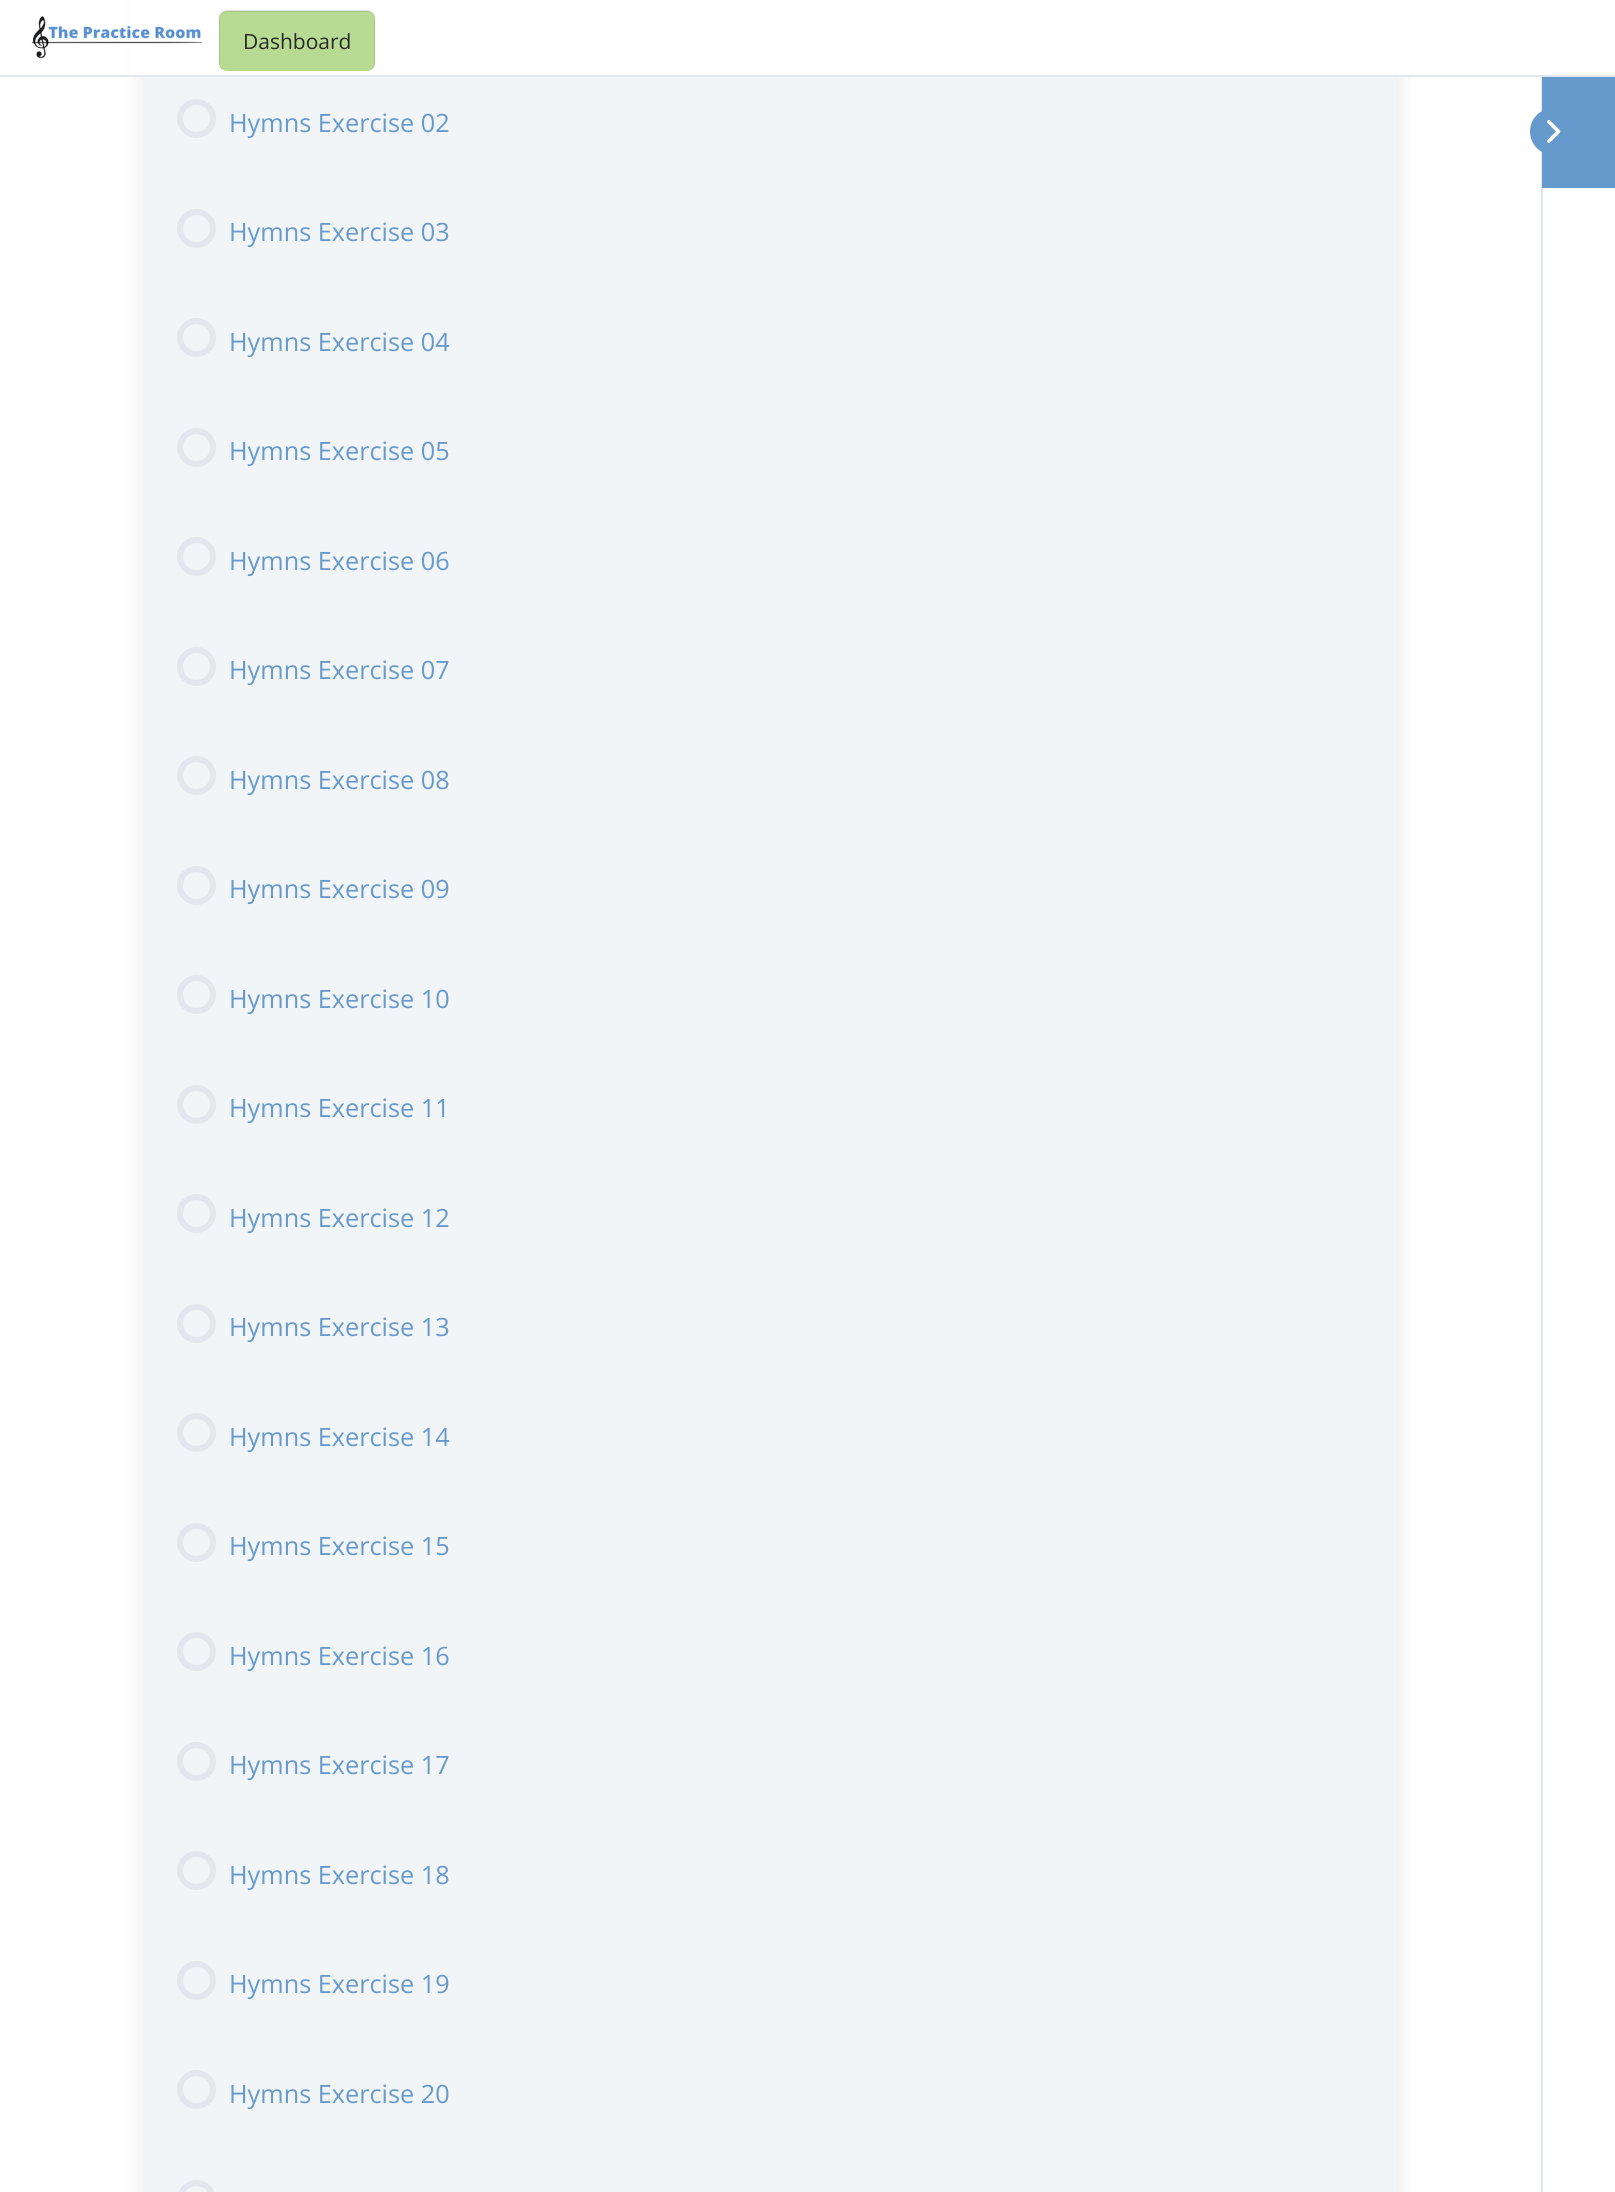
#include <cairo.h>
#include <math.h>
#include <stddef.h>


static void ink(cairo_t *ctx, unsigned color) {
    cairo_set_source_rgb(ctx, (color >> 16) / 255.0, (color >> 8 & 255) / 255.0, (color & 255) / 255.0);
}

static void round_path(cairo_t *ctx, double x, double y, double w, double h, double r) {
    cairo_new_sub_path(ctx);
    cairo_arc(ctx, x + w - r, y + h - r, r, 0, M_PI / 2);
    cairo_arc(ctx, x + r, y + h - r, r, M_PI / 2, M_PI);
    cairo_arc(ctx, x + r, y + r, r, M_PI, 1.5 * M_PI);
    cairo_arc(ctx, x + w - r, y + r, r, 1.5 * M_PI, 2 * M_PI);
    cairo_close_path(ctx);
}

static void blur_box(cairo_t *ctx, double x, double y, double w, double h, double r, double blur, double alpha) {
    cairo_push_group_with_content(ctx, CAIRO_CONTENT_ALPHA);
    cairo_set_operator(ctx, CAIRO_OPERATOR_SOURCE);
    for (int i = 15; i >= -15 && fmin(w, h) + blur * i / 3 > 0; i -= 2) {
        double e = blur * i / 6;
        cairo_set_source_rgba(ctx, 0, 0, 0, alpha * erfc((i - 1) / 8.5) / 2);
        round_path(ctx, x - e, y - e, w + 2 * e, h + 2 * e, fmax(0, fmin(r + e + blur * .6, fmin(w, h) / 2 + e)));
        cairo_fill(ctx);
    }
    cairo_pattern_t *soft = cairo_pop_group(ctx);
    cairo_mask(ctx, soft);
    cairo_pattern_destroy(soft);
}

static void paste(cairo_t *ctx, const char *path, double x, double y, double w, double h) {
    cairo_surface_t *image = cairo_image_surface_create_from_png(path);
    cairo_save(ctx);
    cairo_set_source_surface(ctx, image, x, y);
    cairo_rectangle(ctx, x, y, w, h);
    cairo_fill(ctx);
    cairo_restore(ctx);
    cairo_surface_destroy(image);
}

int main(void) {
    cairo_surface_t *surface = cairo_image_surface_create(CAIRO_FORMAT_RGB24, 1615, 2192);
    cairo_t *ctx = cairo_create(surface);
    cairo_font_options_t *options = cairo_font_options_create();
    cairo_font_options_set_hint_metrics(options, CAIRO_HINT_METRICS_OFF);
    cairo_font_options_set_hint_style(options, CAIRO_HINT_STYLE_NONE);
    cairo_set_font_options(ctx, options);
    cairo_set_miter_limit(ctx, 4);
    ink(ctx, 0xFFFFFF);
    cairo_paint(ctx);
    ink(ctx, 0x000000);
    blur_box(ctx, 144, -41, 1253, 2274, 8, 11, 0.1);
    ink(ctx, 0xF2F5F7);
    cairo_new_path(ctx);
    cairo_move_to(ctx, 144, -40);
    cairo_line_to(ctx, 144, 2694);
    cairo_line_to(ctx, 145, 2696);
    cairo_line_to(ctx, 1396, 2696);
    cairo_line_to(ctx, 1396, 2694);
    cairo_line_to(ctx, 1396, -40);
    cairo_close_path(ctx);
    cairo_fill(ctx);
    ink(ctx, 0xFFFFFF);
    cairo_rectangle(ctx, 130, 0, 1281, 75);
    cairo_fill(ctx);
    ink(ctx, 0xE2E7ED);
    cairo_rectangle(ctx, 0, 75, 1615, 2);
    cairo_fill(ctx);
    paste(ctx, "media/1.png", 31, 16, 171, 43);
    ink(ctx, 0xB7DB93);
    round_path(ctx, 219, 11, 156, 60, 8);
    cairo_fill(ctx);
    cairo_set_source_rgba(ctx, 0, 0, 0, 0.1);
    cairo_set_fill_rule(ctx, CAIRO_FILL_RULE_EVEN_ODD);
    cairo_new_path(ctx);
    cairo_move_to(ctx, 226, 10);
    cairo_line_to(ctx, 368, 10);
    cairo_curve_to(ctx, 372, 10, 375, 14, 375, 18);
    cairo_line_to(ctx, 375, 63);
    cairo_curve_to(ctx, 375, 67, 372, 70, 368, 70);
    cairo_line_to(ctx, 226, 70);
    cairo_curve_to(ctx, 222, 70, 219, 67, 219, 63);
    cairo_line_to(ctx, 219, 18);
    cairo_curve_to(ctx, 219, 14, 222, 10, 226, 10);
    cairo_close_path(ctx);
    cairo_move_to(ctx, 226, 12);
    cairo_line_to(ctx, 368, 12);
    cairo_curve_to(ctx, 371, 12, 374, 15, 374, 18);
    cairo_line_to(ctx, 374, 63);
    cairo_curve_to(ctx, 374, 67, 371, 70, 368, 70);
    cairo_line_to(ctx, 226, 70);
    cairo_curve_to(ctx, 223, 70, 220, 67, 220, 63);
    cairo_line_to(ctx, 220, 18);
    cairo_curve_to(ctx, 220, 15, 223, 12, 226, 12);
    cairo_close_path(ctx);
    cairo_fill(ctx);
    cairo_select_font_face(ctx, "Open Sans", CAIRO_FONT_SLANT_NORMAL, CAIRO_FONT_WEIGHT_NORMAL);
    cairo_set_font_size(ctx, 21);
    ink(ctx, 0x292929);
    cairo_move_to(ctx, 243, 49);
    cairo_show_text(ctx, "Dashboard");
    cairo_new_path(ctx);
    cairo_arc(ctx, 196.5, 118.5, 16.5, 0, 2 * M_PI);
    ink(ctx, 0xE2E7ED);
    cairo_set_line_width(ctx, 6);
    cairo_stroke(ctx);
    cairo_set_font_size(ctx, 25.25);
    ink(ctx, 0x6699CC);
    cairo_move_to(ctx, 229, 132);
    cairo_show_text(ctx, "Hymns Exercise 02");
    cairo_new_path(ctx);
    cairo_arc(ctx, 196.5, 228.5, 16.5, 0, 2 * M_PI);
    ink(ctx, 0xE2E7ED);
    cairo_stroke(ctx);
    ink(ctx, 0x6699CC);
    cairo_move_to(ctx, 229, 241);
    cairo_show_text(ctx, "Hymns Exercise 03");
    cairo_new_path(ctx);
    cairo_arc(ctx, 196.5, 337.5, 16.5, 0, 2 * M_PI);
    ink(ctx, 0xE2E7ED);
    cairo_stroke(ctx);
    ink(ctx, 0x6699CC);
    cairo_move_to(ctx, 229, 351);
    cairo_show_text(ctx, "Hymns Exercise 04");
    cairo_new_path(ctx);
    cairo_arc(ctx, 196.5, 447.5, 16.5, 0, 2 * M_PI);
    ink(ctx, 0xE2E7ED);
    cairo_stroke(ctx);
    ink(ctx, 0x6699CC);
    cairo_move_to(ctx, 229, 460);
    cairo_show_text(ctx, "Hymns Exercise 05");
    cairo_new_path(ctx);
    cairo_arc(ctx, 196.5, 556.5, 16.5, 0, 2 * M_PI);
    ink(ctx, 0xE2E7ED);
    cairo_stroke(ctx);
    ink(ctx, 0x6699CC);
    cairo_move_to(ctx, 229, 570);
    cairo_show_text(ctx, "Hymns Exercise 06");
    cairo_new_path(ctx);
    cairo_arc(ctx, 196.5, 666.5, 16.5, 0, 2 * M_PI);
    ink(ctx, 0xE2E7ED);
    cairo_stroke(ctx);
    ink(ctx, 0x6699CC);
    cairo_move_to(ctx, 229, 679);
    cairo_show_text(ctx, "Hymns Exercise 07");
    cairo_new_path(ctx);
    cairo_arc(ctx, 196.5, 775.5, 16.5, 0, 2 * M_PI);
    ink(ctx, 0xE2E7ED);
    cairo_stroke(ctx);
    ink(ctx, 0x6699CC);
    cairo_move_to(ctx, 229, 789);
    cairo_show_text(ctx, "Hymns Exercise 08");
    cairo_new_path(ctx);
    cairo_arc(ctx, 196.5, 885.5, 16.5, 0, 2 * M_PI);
    ink(ctx, 0xE2E7ED);
    cairo_stroke(ctx);
    ink(ctx, 0x6699CC);
    cairo_move_to(ctx, 229, 898);
    cairo_show_text(ctx, "Hymns Exercise 09");
    cairo_new_path(ctx);
    cairo_arc(ctx, 196.5, 994.5, 16.5, 0, 2 * M_PI);
    ink(ctx, 0xE2E7ED);
    cairo_stroke(ctx);
    ink(ctx, 0x6699CC);
    cairo_move_to(ctx, 229, 1008);
    cairo_show_text(ctx, "Hymns Exercise 10");
    cairo_new_path(ctx);
    cairo_arc(ctx, 196.5, 1104.5, 16.5, 0, 2 * M_PI);
    ink(ctx, 0xE2E7ED);
    cairo_stroke(ctx);
    ink(ctx, 0x6699CC);
    cairo_move_to(ctx, 229, 1117);
    cairo_show_text(ctx, "Hymns Exercise 11");
    cairo_new_path(ctx);
    cairo_arc(ctx, 196.5, 1213.5, 16.5, 0, 2 * M_PI);
    ink(ctx, 0xE2E7ED);
    cairo_stroke(ctx);
    ink(ctx, 0x6699CC);
    cairo_move_to(ctx, 229, 1227);
    cairo_show_text(ctx, "Hymns Exercise 12");
    cairo_new_path(ctx);
    cairo_arc(ctx, 196.5, 1323.5, 16.5, 0, 2 * M_PI);
    ink(ctx, 0xE2E7ED);
    cairo_stroke(ctx);
    ink(ctx, 0x6699CC);
    cairo_move_to(ctx, 229, 1336);
    cairo_show_text(ctx, "Hymns Exercise 13");
    cairo_new_path(ctx);
    cairo_arc(ctx, 196.5, 1432.5, 16.5, 0, 2 * M_PI);
    ink(ctx, 0xE2E7ED);
    cairo_stroke(ctx);
    ink(ctx, 0x6699CC);
    cairo_move_to(ctx, 229, 1446);
    cairo_show_text(ctx, "Hymns Exercise 14");
    cairo_new_path(ctx);
    cairo_arc(ctx, 196.5, 1542.5, 16.5, 0, 2 * M_PI);
    ink(ctx, 0xE2E7ED);
    cairo_stroke(ctx);
    ink(ctx, 0x6699CC);
    cairo_move_to(ctx, 229, 1555);
    cairo_show_text(ctx, "Hymns Exercise 15");
    cairo_new_path(ctx);
    cairo_arc(ctx, 196.5, 1651.5, 16.5, 0, 2 * M_PI);
    ink(ctx, 0xE2E7ED);
    cairo_stroke(ctx);
    ink(ctx, 0x6699CC);
    cairo_move_to(ctx, 229, 1665);
    cairo_show_text(ctx, "Hymns Exercise 16");
    cairo_new_path(ctx);
    cairo_arc(ctx, 196.5, 1761.5, 16.5, 0, 2 * M_PI);
    ink(ctx, 0xE2E7ED);
    cairo_stroke(ctx);
    ink(ctx, 0x6699CC);
    cairo_move_to(ctx, 229, 1774);
    cairo_show_text(ctx, "Hymns Exercise 17");
    cairo_new_path(ctx);
    cairo_arc(ctx, 196.5, 1870.5, 16.5, 0, 2 * M_PI);
    ink(ctx, 0xE2E7ED);
    cairo_stroke(ctx);
    ink(ctx, 0x6699CC);
    cairo_move_to(ctx, 229, 1884);
    cairo_show_text(ctx, "Hymns Exercise 18");
    cairo_new_path(ctx);
    cairo_arc(ctx, 196.5, 1980.5, 16.5, 0, 2 * M_PI);
    ink(ctx, 0xE2E7ED);
    cairo_stroke(ctx);
    ink(ctx, 0x6699CC);
    cairo_move_to(ctx, 229, 1993);
    cairo_show_text(ctx, "Hymns Exercise 19");
    cairo_new_path(ctx);
    cairo_arc(ctx, 196.5, 2089.5, 16.5, 0, 2 * M_PI);
    ink(ctx, 0xE2E7ED);
    cairo_stroke(ctx);
    ink(ctx, 0x6699CC);
    cairo_move_to(ctx, 229, 2103);
    cairo_show_text(ctx, "Hymns Exercise 20");
    round_path(ctx, 180, 2183, 33, 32, 16.5);
    ink(ctx, 0xE2E7ED);
    cairo_stroke(ctx);
    cairo_rectangle(ctx, 1541, 77, 2, 2115);
    cairo_fill(ctx);
    ink(ctx, 0x6699CC);
    cairo_rectangle(ctx, 1542, 77, 73, 111);
    cairo_fill(ctx);
    cairo_arc(ctx, 1553.5, 131.5, 23.5, 0, 2 * M_PI);
    cairo_fill(ctx);
    paste(ctx, "media/2.png", 1547, 120, 14, 23);
    cairo_surface_write_to_png(surface, "image.png");
    cairo_font_options_destroy(options);
    cairo_destroy(ctx);
    cairo_surface_destroy(surface);
    return 0;
}
